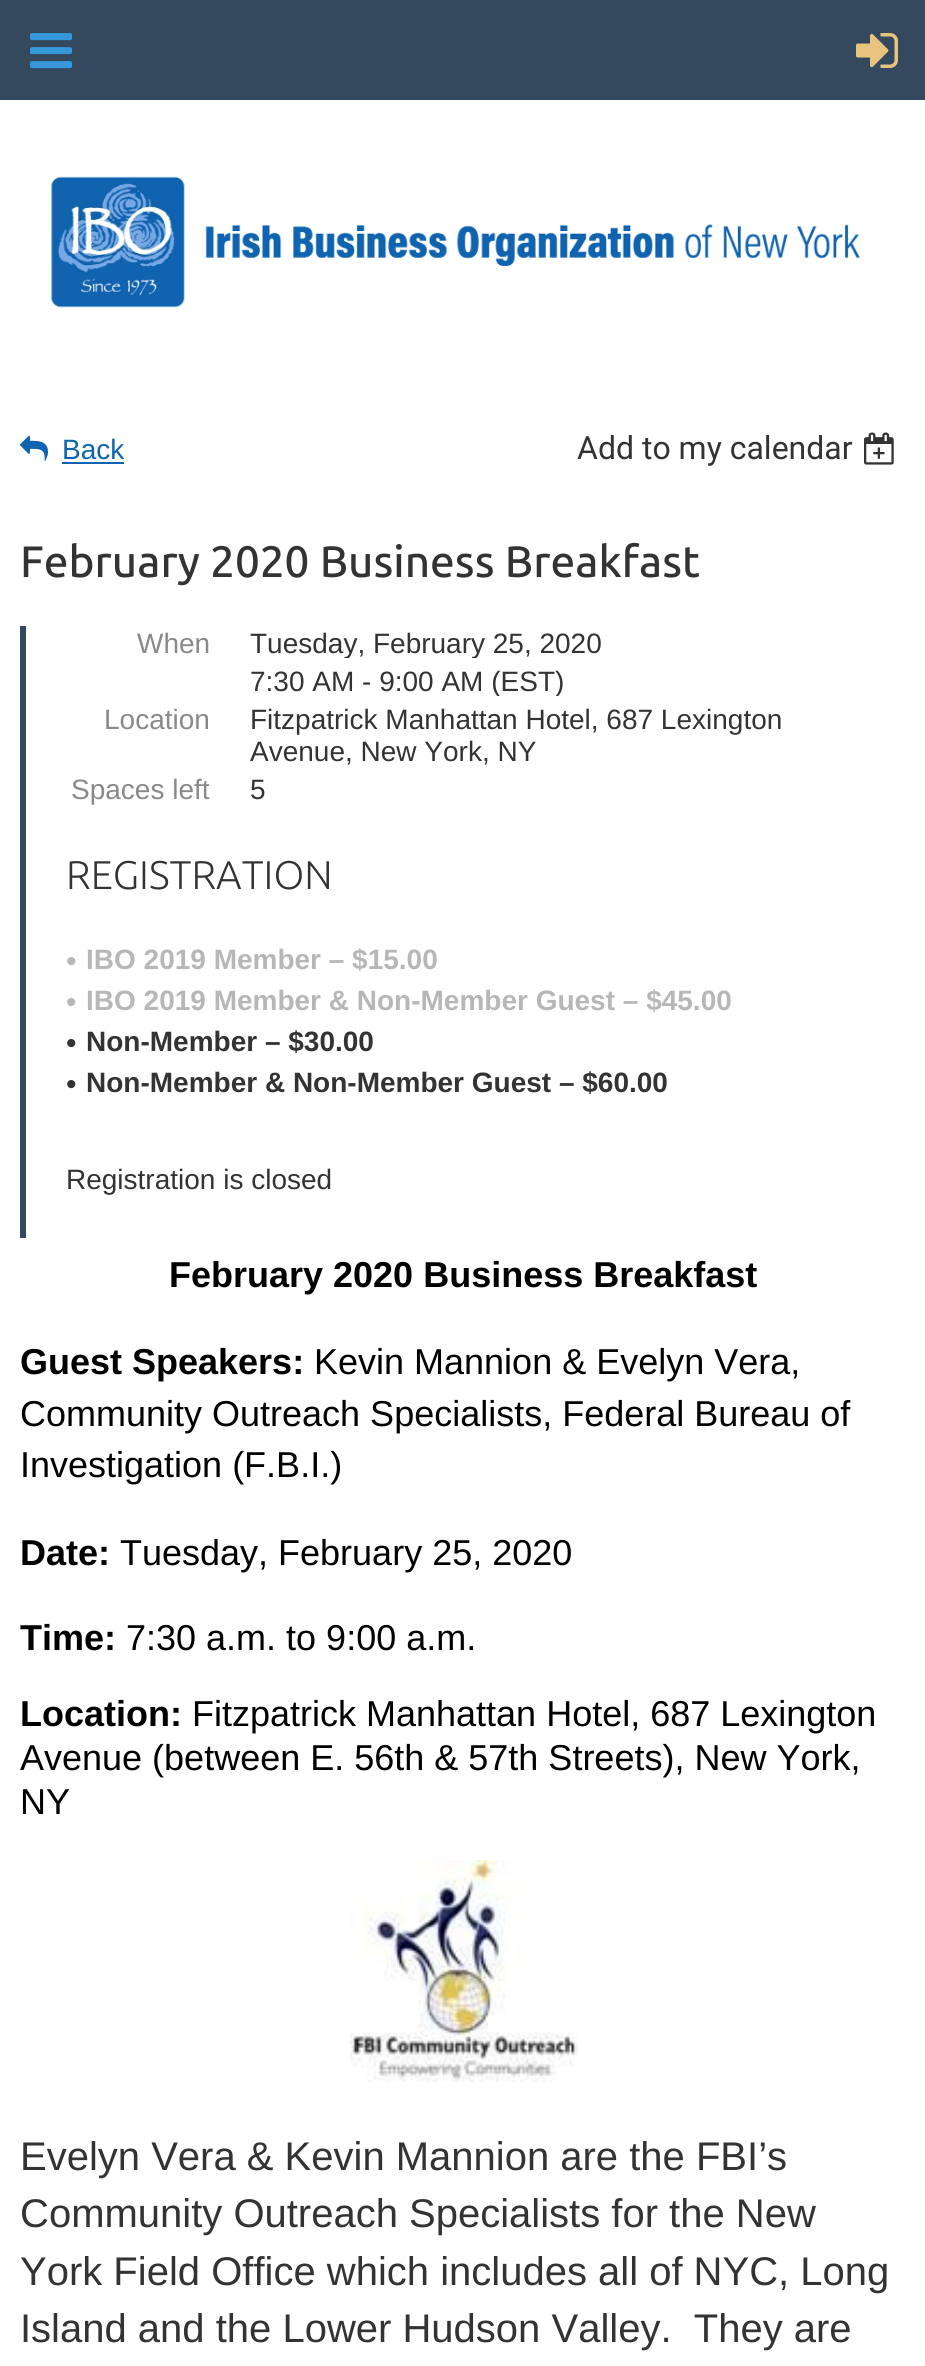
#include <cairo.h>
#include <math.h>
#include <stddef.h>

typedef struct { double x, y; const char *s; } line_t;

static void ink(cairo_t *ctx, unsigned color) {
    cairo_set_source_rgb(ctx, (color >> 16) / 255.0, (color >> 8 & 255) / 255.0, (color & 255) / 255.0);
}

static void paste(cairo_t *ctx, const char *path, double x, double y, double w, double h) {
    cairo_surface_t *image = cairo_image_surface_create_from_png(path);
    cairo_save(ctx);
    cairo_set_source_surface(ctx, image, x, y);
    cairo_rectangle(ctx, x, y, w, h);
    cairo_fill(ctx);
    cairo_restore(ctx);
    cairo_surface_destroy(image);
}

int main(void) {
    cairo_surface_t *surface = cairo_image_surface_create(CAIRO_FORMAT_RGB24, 925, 2366);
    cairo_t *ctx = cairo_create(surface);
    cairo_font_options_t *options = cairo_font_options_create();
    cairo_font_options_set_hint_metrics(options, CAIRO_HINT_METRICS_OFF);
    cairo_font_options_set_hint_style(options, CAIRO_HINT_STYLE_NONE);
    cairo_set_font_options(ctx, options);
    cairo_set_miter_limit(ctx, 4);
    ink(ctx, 0xFFFFFF);
    cairo_paint(ctx);
    ink(ctx, 0x34495E);
    cairo_rectangle(ctx, 0, 0, 925, 100);
    cairo_fill(ctx);
    paste(ctx, "media/1.png", 30, 33, 42, 36);
    paste(ctx, "media/2.png", 856, 33, 42, 35);
    paste(ctx, "media/3.png", 51, 176, 809, 132);
    paste(ctx, "media/4.png", 20, 435, 28, 26);
    cairo_select_font_face(ctx, "Liberation Sans", CAIRO_FONT_SLANT_NORMAL, CAIRO_FONT_WEIGHT_NORMAL);
    cairo_set_font_size(ctx, 28);
    ink(ctx, 0x1063AF);
    cairo_move_to(ctx, 62, 459);
    cairo_show_text(ctx, "Back");
    cairo_rectangle(ctx, 62, 462, 62, 2);
    cairo_fill(ctx);
    cairo_select_font_face(ctx, "Roboto", CAIRO_FONT_SLANT_NORMAL, CAIRO_FONT_WEIGHT_NORMAL);
    cairo_set_font_size(ctx, 32);
    ink(ctx, 0x333333);
    cairo_move_to(ctx, 577, 459);
    cairo_show_text(ctx, "Add to my calendar");
    paste(ctx, "media/5.png", 864, 432, 30, 33);
    cairo_select_font_face(ctx, "Ubuntu Medium", CAIRO_FONT_SLANT_NORMAL, CAIRO_FONT_WEIGHT_NORMAL);
    cairo_set_font_size(ctx, 44);
    cairo_move_to(ctx, 20, 577);
    cairo_show_text(ctx, "February 2020 Business Breakfast");
    ink(ctx, 0x34495E);
    cairo_rectangle(ctx, 20, 626, 6, 612);
    cairo_fill(ctx);
    cairo_select_font_face(ctx, "Liberation Sans", CAIRO_FONT_SLANT_NORMAL, CAIRO_FONT_WEIGHT_NORMAL);
    cairo_set_font_size(ctx, 28);
    ink(ctx, 0x898989);
    cairo_move_to(ctx, 137, 653);
    cairo_show_text(ctx, "When");
    cairo_save(ctx);
    cairo_rectangle(ctx, 250, 626, 616, 32);
    cairo_clip(ctx);
    ink(ctx, 0x333333);
    cairo_move_to(ctx, 250, 653);
    cairo_show_text(ctx, "Tuesday, February 25, 2020");
    cairo_restore(ctx);
    cairo_save(ctx);
    cairo_rectangle(ctx, 250, 664, 616, 32);
    cairo_clip(ctx);
    ink(ctx, 0x333333);
    cairo_move_to(ctx, 250, 691);
    cairo_show_text(ctx, "7:30 AM - 9:00 AM (EST)");
    cairo_restore(ctx);
    cairo_move_to(ctx, 104, 729);
    cairo_show_text(ctx, "Location");
    ink(ctx, 0x333333);
    cairo_move_to(ctx, 250, 729);
    cairo_show_text(ctx, "Fitzpatrick Manhattan Hotel, 687 Lexington");
    cairo_move_to(ctx, 250, 761);
    cairo_show_text(ctx, "Avenue, New York, NY");
    ink(ctx, 0x898989);
    cairo_move_to(ctx, 71, 799);
    cairo_show_text(ctx, "Spaces left");
    ink(ctx, 0x333333);
    cairo_move_to(ctx, 250, 799);
    cairo_show_text(ctx, "5");
    cairo_select_font_face(ctx, "Ubuntu Light", CAIRO_FONT_SLANT_NORMAL, CAIRO_FONT_WEIGHT_NORMAL);
    cairo_set_font_size(ctx, 40);
    cairo_move_to(ctx, 66, 889);
    cairo_show_text(ctx, "REGISTRATION");
    cairo_select_font_face(ctx, "Liberation Sans", CAIRO_FONT_SLANT_NORMAL, CAIRO_FONT_WEIGHT_NORMAL);
    cairo_set_font_size(ctx, 30);
    ink(ctx, 0xB7B7B7);
    cairo_move_to(ctx, 66, 971);
    cairo_show_text(ctx, "•");
    cairo_select_font_face(ctx, "Liberation Sans", CAIRO_FONT_SLANT_NORMAL, CAIRO_FONT_WEIGHT_BOLD);
    cairo_set_font_size(ctx, 28);
    cairo_move_to(ctx, 86, 969);
    cairo_show_text(ctx, "IBO 2019 Member – $15.00");
    cairo_select_font_face(ctx, "Liberation Sans", CAIRO_FONT_SLANT_NORMAL, CAIRO_FONT_WEIGHT_NORMAL);
    cairo_set_font_size(ctx, 30);
    cairo_move_to(ctx, 66, 1012);
    cairo_show_text(ctx, "•");
    cairo_select_font_face(ctx, "Liberation Sans", CAIRO_FONT_SLANT_NORMAL, CAIRO_FONT_WEIGHT_BOLD);
    cairo_set_font_size(ctx, 28);
    cairo_move_to(ctx, 86, 1010);
    cairo_show_text(ctx, "IBO 2019 Member & Non-Member Guest – $45.00");
    cairo_select_font_face(ctx, "Liberation Sans", CAIRO_FONT_SLANT_NORMAL, CAIRO_FONT_WEIGHT_NORMAL);
    cairo_set_font_size(ctx, 30);
    ink(ctx, 0x333333);
    cairo_move_to(ctx, 66, 1053);
    cairo_show_text(ctx, "•");
    cairo_select_font_face(ctx, "Liberation Sans", CAIRO_FONT_SLANT_NORMAL, CAIRO_FONT_WEIGHT_BOLD);
    cairo_set_font_size(ctx, 28);
    cairo_move_to(ctx, 86, 1051);
    cairo_show_text(ctx, "Non-Member – $30.00");
    cairo_select_font_face(ctx, "Liberation Sans", CAIRO_FONT_SLANT_NORMAL, CAIRO_FONT_WEIGHT_NORMAL);
    cairo_set_font_size(ctx, 30);
    cairo_move_to(ctx, 66, 1094);
    cairo_show_text(ctx, "•");
    cairo_select_font_face(ctx, "Liberation Sans", CAIRO_FONT_SLANT_NORMAL, CAIRO_FONT_WEIGHT_BOLD);
    cairo_set_font_size(ctx, 28);
    cairo_move_to(ctx, 86, 1092);
    cairo_show_text(ctx, "Non-Member & Non-Member Guest – $60.00");
    cairo_select_font_face(ctx, "Liberation Sans", CAIRO_FONT_SLANT_NORMAL, CAIRO_FONT_WEIGHT_NORMAL);
    cairo_move_to(ctx, 66, 1189);
    cairo_show_text(ctx, "Registration is closed");
    cairo_select_font_face(ctx, "Liberation Sans", CAIRO_FONT_SLANT_NORMAL, CAIRO_FONT_WEIGHT_BOLD);
    cairo_set_font_size(ctx, 36);
    ink(ctx, 0x000000);
    cairo_move_to(ctx, 169, 1287);
    cairo_show_text(ctx, "February 2020 Business Breakfast");
    cairo_move_to(ctx, 20, 1374);
    cairo_show_text(ctx, "Guest Speakers:");
    cairo_select_font_face(ctx, "Liberation Sans", CAIRO_FONT_SLANT_NORMAL, CAIRO_FONT_WEIGHT_NORMAL);
    {
        static const line_t items[] = {
            {314, 1374, "Kevin Mannion & Evelyn Vera,"},
            {20, 1426, "Community Outreach Specialists, Federal Bureau of"},
            {20, 1477, "Investigation (F.B.I.)"},
        };
        for (size_t i = 0; i < sizeof items / sizeof *items; i++) {
            cairo_move_to(ctx, items[i].x, items[i].y);
            cairo_show_text(ctx, items[i].s);
        }
    }
    cairo_select_font_face(ctx, "Liberation Sans", CAIRO_FONT_SLANT_NORMAL, CAIRO_FONT_WEIGHT_BOLD);
    cairo_move_to(ctx, 20, 1565);
    cairo_show_text(ctx, "Date:");
    cairo_select_font_face(ctx, "Liberation Sans", CAIRO_FONT_SLANT_NORMAL, CAIRO_FONT_WEIGHT_NORMAL);
    cairo_move_to(ctx, 120, 1565);
    cairo_show_text(ctx, "Tuesday, February 25, 2020");
    cairo_select_font_face(ctx, "Liberation Sans", CAIRO_FONT_SLANT_NORMAL, CAIRO_FONT_WEIGHT_BOLD);
    cairo_move_to(ctx, 20, 1650);
    cairo_show_text(ctx, "Time:");
    cairo_select_font_face(ctx, "Liberation Sans", CAIRO_FONT_SLANT_NORMAL, CAIRO_FONT_WEIGHT_NORMAL);
    cairo_move_to(ctx, 126, 1650);
    cairo_show_text(ctx, "7:30 a.m. to 9:00 a.m.");
    cairo_select_font_face(ctx, "Liberation Sans", CAIRO_FONT_SLANT_NORMAL, CAIRO_FONT_WEIGHT_BOLD);
    cairo_move_to(ctx, 20, 1726);
    cairo_show_text(ctx, "Location:");
    cairo_select_font_face(ctx, "Liberation Sans", CAIRO_FONT_SLANT_NORMAL, CAIRO_FONT_WEIGHT_NORMAL);
    {
        static const line_t items[] = {
            {192, 1726, "Fitzpatrick Manhattan Hotel, 687 Lexington"},
            {20, 1770, "Avenue (between E. 56th & 57th Streets), New York,"},
            {20, 1814, "NY"},
        };
        for (size_t i = 0; i < sizeof items / sizeof *items; i++) {
            cairo_move_to(ctx, items[i].x, items[i].y);
            cairo_show_text(ctx, items[i].s);
        }
    }
    paste(ctx, "media/6.png", 350, 1860, 228, 222);
    cairo_set_font_size(ctx, 40);
    ink(ctx, 0x333333);
    {
        static const line_t items[] = {
            {20, 2170, "Evelyn Vera & Kevin Mannion are the FBI’s"},
            {20, 2227, "Community Outreach Specialists for the New"},
            {20, 2285, "York Field Office which includes all of NYC, Long"},
            {20, 2342, "Island and the Lower Hudson Valley.  They are"},
        };
        for (size_t i = 0; i < sizeof items / sizeof *items; i++) {
            cairo_move_to(ctx, items[i].x, items[i].y);
            cairo_show_text(ctx, items[i].s);
        }
    }
    cairo_surface_write_to_png(surface, "image.png");
    cairo_font_options_destroy(options);
    cairo_destroy(ctx);
    cairo_surface_destroy(surface);
    return 0;
}
